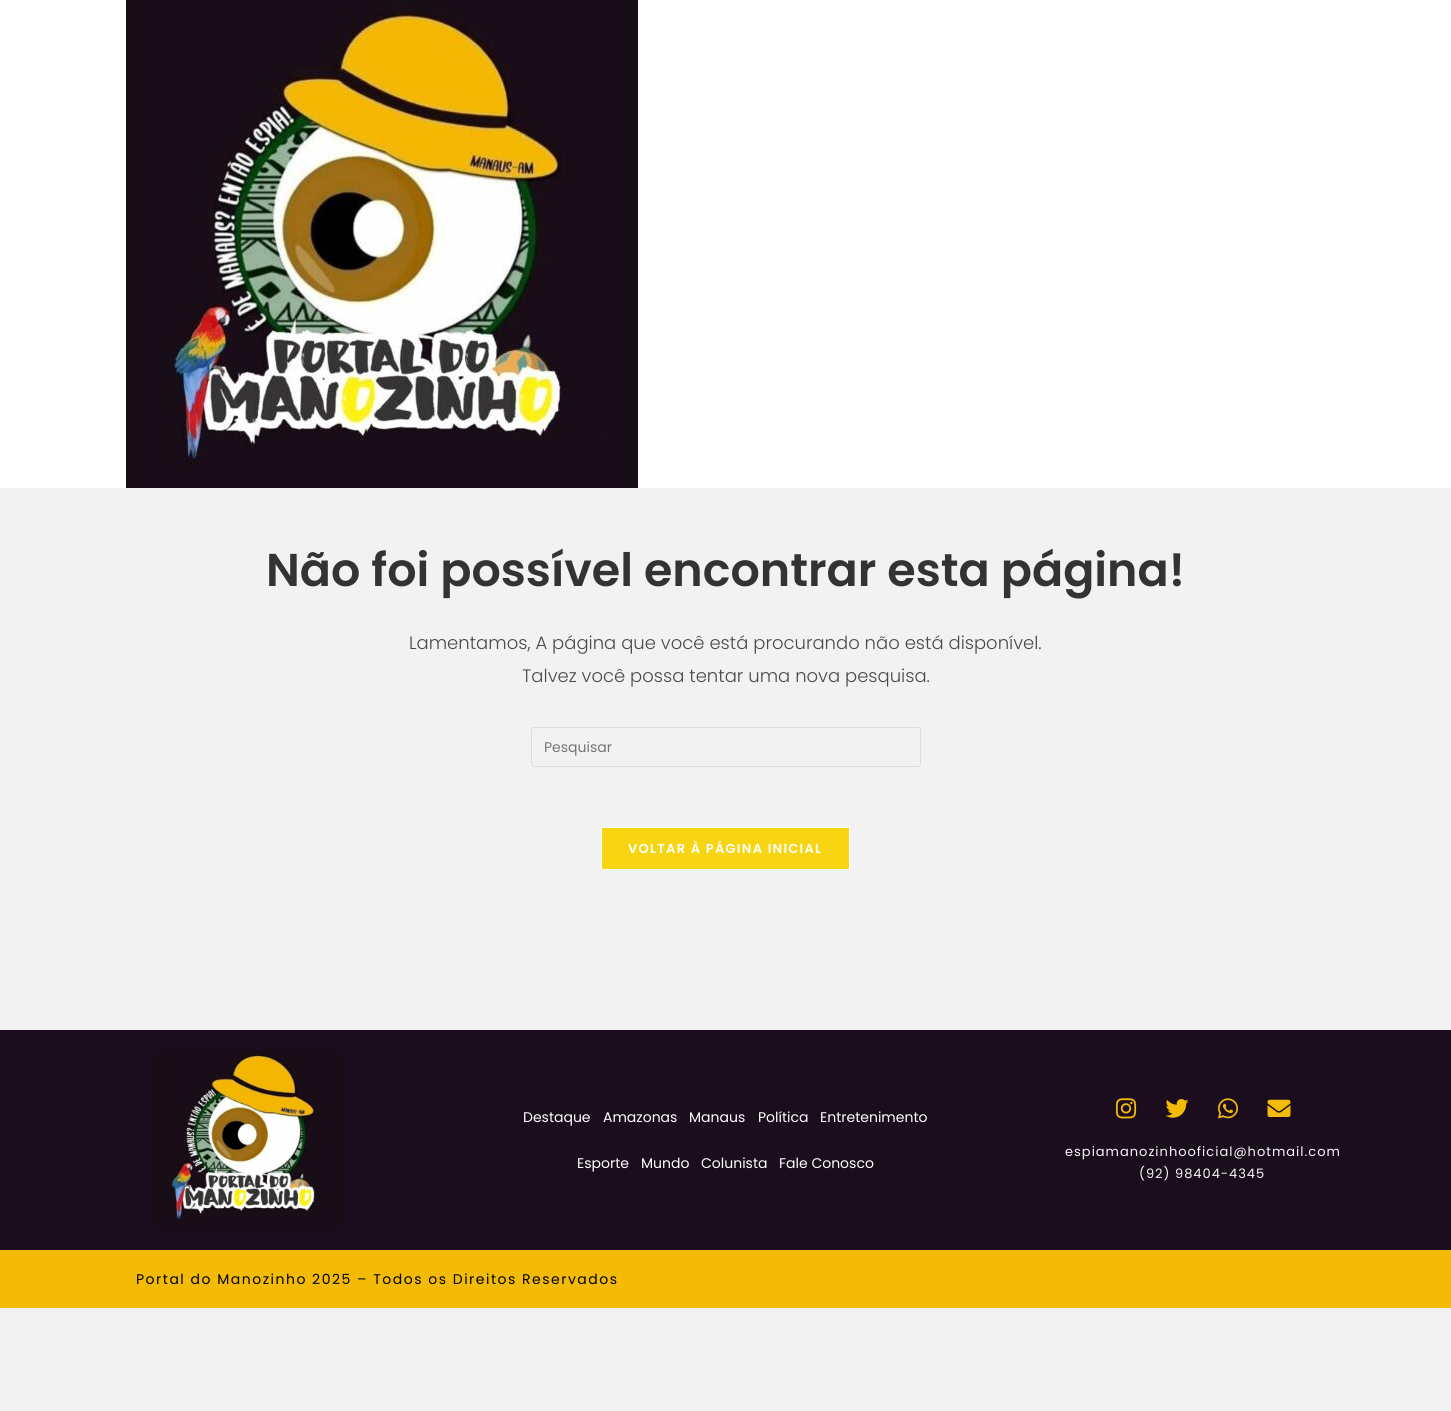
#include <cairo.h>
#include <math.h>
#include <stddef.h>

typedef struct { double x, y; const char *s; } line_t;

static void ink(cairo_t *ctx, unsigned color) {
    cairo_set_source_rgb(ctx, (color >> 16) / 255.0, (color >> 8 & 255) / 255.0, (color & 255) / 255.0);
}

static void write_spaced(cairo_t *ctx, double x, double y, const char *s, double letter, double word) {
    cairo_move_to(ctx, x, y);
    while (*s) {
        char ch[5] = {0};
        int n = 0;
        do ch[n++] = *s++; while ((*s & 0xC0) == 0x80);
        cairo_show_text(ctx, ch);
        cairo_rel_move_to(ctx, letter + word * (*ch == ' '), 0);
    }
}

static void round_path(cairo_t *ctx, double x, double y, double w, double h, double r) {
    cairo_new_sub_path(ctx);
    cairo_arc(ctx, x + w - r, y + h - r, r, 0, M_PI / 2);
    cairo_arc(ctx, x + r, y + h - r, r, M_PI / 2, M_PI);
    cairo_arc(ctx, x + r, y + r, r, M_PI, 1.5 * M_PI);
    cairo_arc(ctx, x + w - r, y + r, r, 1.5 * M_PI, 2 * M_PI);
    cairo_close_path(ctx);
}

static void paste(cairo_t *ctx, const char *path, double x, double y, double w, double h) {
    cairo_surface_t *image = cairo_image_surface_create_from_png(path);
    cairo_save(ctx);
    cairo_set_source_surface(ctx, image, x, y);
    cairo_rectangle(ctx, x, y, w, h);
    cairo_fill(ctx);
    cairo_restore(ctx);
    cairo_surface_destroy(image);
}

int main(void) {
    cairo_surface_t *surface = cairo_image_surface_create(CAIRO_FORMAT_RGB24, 1451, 1411);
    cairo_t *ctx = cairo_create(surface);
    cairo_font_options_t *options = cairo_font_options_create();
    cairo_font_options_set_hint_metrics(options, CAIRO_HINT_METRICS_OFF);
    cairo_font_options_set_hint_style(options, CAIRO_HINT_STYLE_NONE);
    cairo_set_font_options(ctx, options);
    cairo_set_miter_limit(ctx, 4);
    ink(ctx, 0xF2F2F2);
    cairo_paint(ctx);
    ink(ctx, 0xFFFFFF);
    cairo_rectangle(ctx, 0, 0, 1451, 488);
    cairo_fill(ctx);
    paste(ctx, "media/1.png", 126, 0, 512, 488);
    cairo_select_font_face(ctx, "Poppins SemiBold", CAIRO_FONT_SLANT_NORMAL, CAIRO_FONT_WEIGHT_NORMAL);
    cairo_set_font_size(ctx, 46);
    ink(ctx, 0x333333);
    cairo_move_to(ctx, 266, 586);
    cairo_show_text(ctx, "Não foi possível encontrar esta página!");
    cairo_select_font_face(ctx, "Poppins Light", CAIRO_FONT_SLANT_NORMAL, CAIRO_FONT_WEIGHT_NORMAL);
    cairo_set_font_size(ctx, 18);
    ink(ctx, 0x4A4A4A);
    cairo_move_to(ctx, 409, 649);
    cairo_show_text(ctx, "Lamentamos, A página que você está procurando não está disponível.");
    cairo_move_to(ctx, 522, 682);
    cairo_show_text(ctx, "Talvez você possa tentar uma nova pesquisa.");
    round_path(ctx, 531.5, 727.5, 389, 39, 2.5);
    ink(ctx, 0xDDDDDD);
    cairo_set_line_width(ctx, 1);
    cairo_stroke(ctx);
    cairo_select_font_face(ctx, "Poppins", CAIRO_FONT_SLANT_NORMAL, CAIRO_FONT_WEIGHT_NORMAL);
    cairo_set_font_size(ctx, 14);
    ink(ctx, 0x757575);
    cairo_move_to(ctx, 544, 752);
    cairo_show_text(ctx, "Pesquisar");
    ink(ctx, 0xF7D513);
    cairo_rectangle(ctx, 601.5, 827.5, 248, 42);
    cairo_fill_preserve(ctx);
    ink(ctx, 0xFFFFFF);
    cairo_stroke(ctx);
    cairo_select_font_face(ctx, "Poppins SemiBold", CAIRO_FONT_SLANT_NORMAL, CAIRO_FONT_WEIGHT_NORMAL);
    cairo_set_font_size(ctx, 13);
    write_spaced(ctx, 628, 853, "VOLTAR À PÁGINA INICIAL", 1.3, 0);
    ink(ctx, 0x1B0D1E);
    cairo_rectangle(ctx, 0, 1030, 1451, 220);
    cairo_fill(ctx);
    paste(ctx, "media/2.png", 154, 1050, 189, 180);
    cairo_select_font_face(ctx, "Poppins", CAIRO_FONT_SLANT_NORMAL, CAIRO_FONT_WEIGHT_NORMAL);
    cairo_set_font_size(ctx, 14);
    ink(ctx, 0xFFFFFF);
    {
        static const line_t items[] = {
            {523, 1122, "Destaque"},
            {603, 1122, "Amazonas"},
            {689, 1122, "Manaus"},
            {758, 1122, "Política"},
            {820, 1122, "Entretenimento"},
            {577, 1168, "Esporte"},
            {641, 1168, "Mundo"},
            {701, 1168, "Colunista"},
            {779, 1168, "Fale Conosco"},
        };
        for (size_t i = 0; i < sizeof items / sizeof *items; i++) {
            cairo_move_to(ctx, items[i].x, items[i].y);
            cairo_show_text(ctx, items[i].s);
        }
    }
    paste(ctx, "media/3.png", 1115, 1098, 22, 21);
    paste(ctx, "media/4.png", 1165, 1099, 24, 19);
    paste(ctx, "media/5.png", 1218, 1098, 21, 21);
    paste(ctx, "media/6.png", 1267, 1099, 24, 18);
    cairo_set_font_size(ctx, 13);
    ink(ctx, 0xF7F7F7);
    write_spaced(ctx, 1065, 1156, "espiamanozinhooficial@hotmail.com", 1, 0);
    write_spaced(ctx, 1139, 1178, "(92) 98404-4345", 1, 0);
    ink(ctx, 0xF3BB06);
    cairo_rectangle(ctx, 0, 1250, 1451, 58);
    cairo_fill(ctx);
    cairo_set_font_size(ctx, 14);
    ink(ctx, 0x000000);
    write_spaced(ctx, 136, 1284, "Portal do Manozinho 2025 – Todos os Direitos Reservados", 1.5, 0);
    cairo_surface_write_to_png(surface, "image.png");
    cairo_font_options_destroy(options);
    cairo_destroy(ctx);
    cairo_surface_destroy(surface);
    return 0;
}
